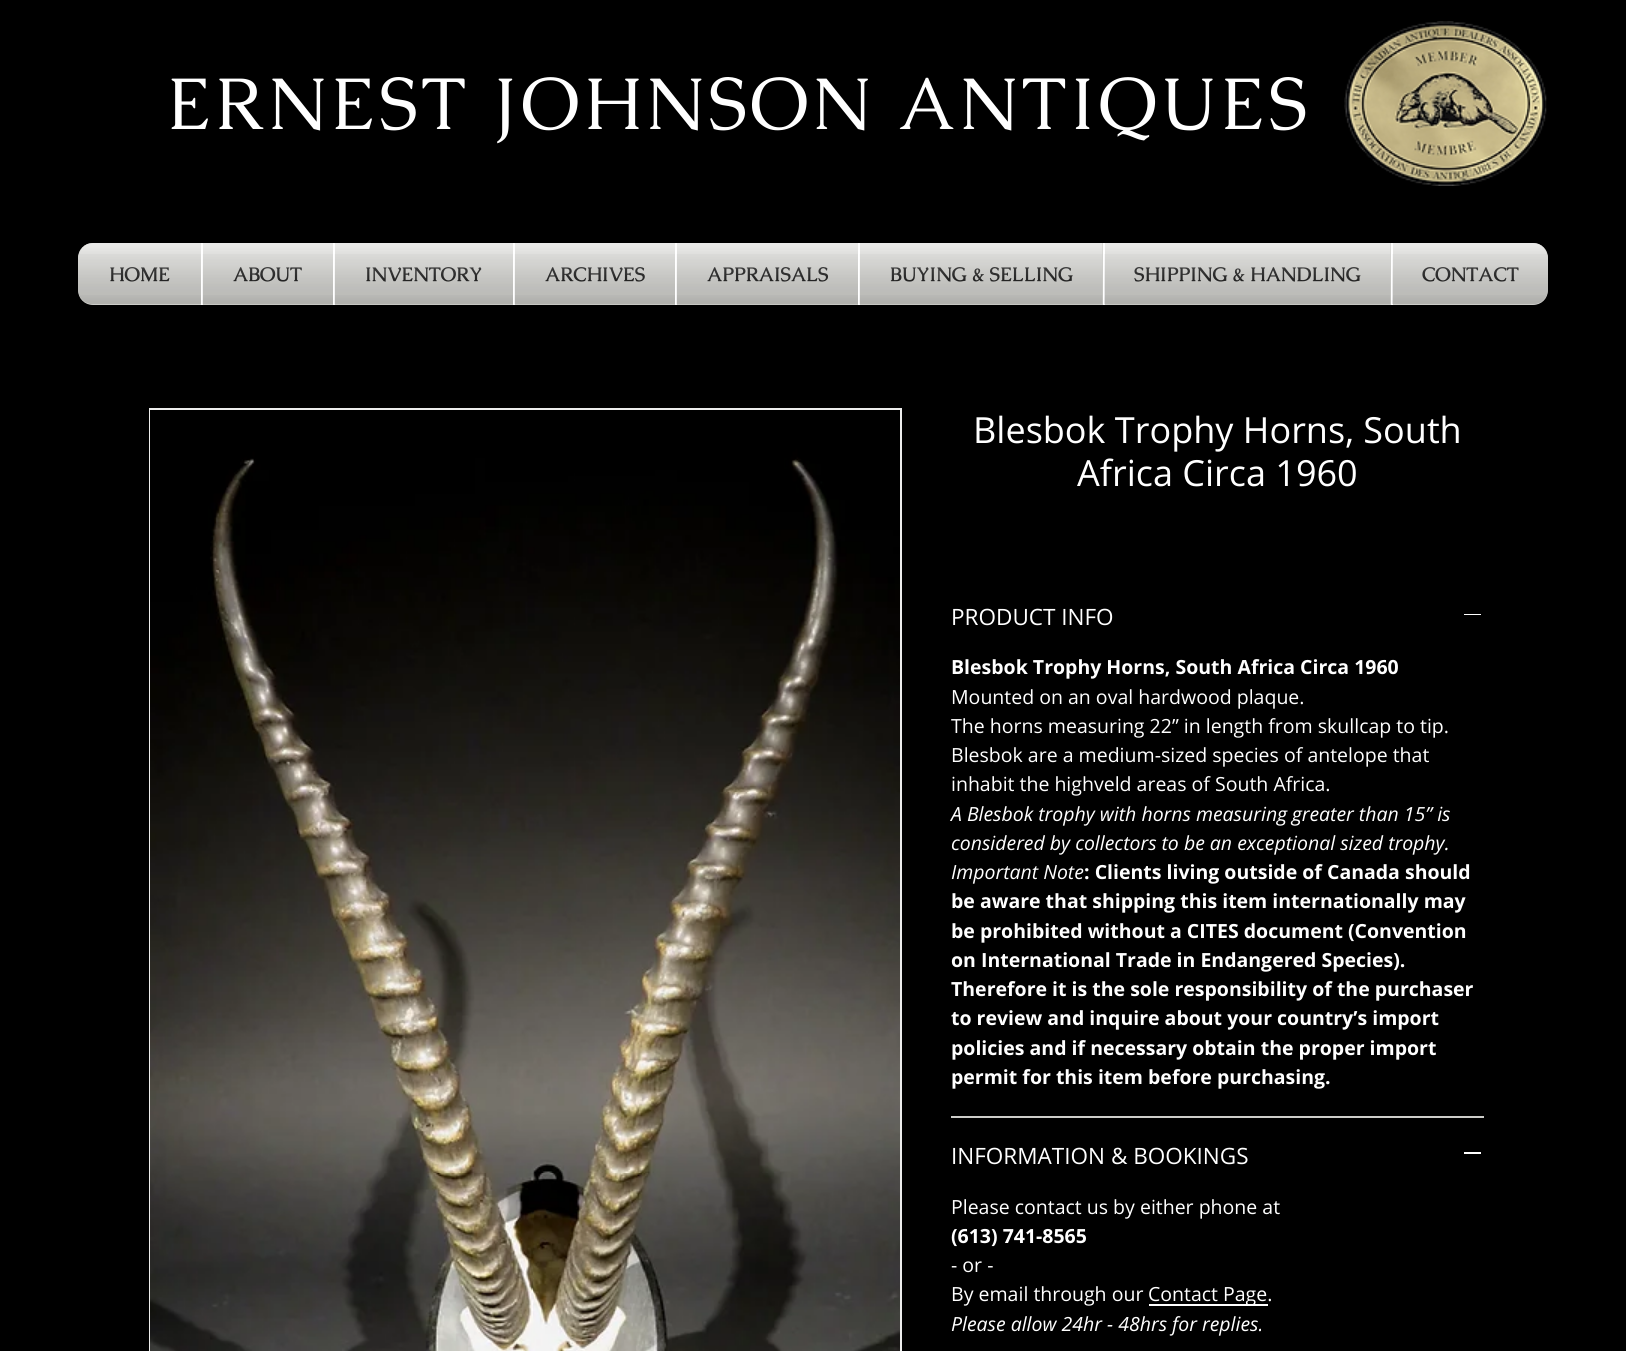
#include <cairo.h>
#include <math.h>
#include <stddef.h>

typedef struct { double x, y; const char *s; } line_t;

static void ink(cairo_t *ctx, unsigned color) {
    cairo_set_source_rgb(ctx, (color >> 16) / 255.0, (color >> 8 & 255) / 255.0, (color & 255) / 255.0);
}

static void write_spaced(cairo_t *ctx, double x, double y, const char *s, double letter, double word) {
    cairo_move_to(ctx, x, y);
    while (*s) {
        char ch[5] = {0};
        int n = 0;
        do ch[n++] = *s++; while ((*s & 0xC0) == 0x80);
        cairo_show_text(ctx, ch);
        cairo_rel_move_to(ctx, letter + word * (*ch == ' '), 0);
    }
}

static void paste(cairo_t *ctx, const char *path, double x, double y, double w, double h) {
    cairo_surface_t *image = cairo_image_surface_create_from_png(path);
    cairo_save(ctx);
    cairo_set_source_surface(ctx, image, x, y);
    cairo_rectangle(ctx, x, y, w, h);
    cairo_fill(ctx);
    cairo_restore(ctx);
    cairo_surface_destroy(image);
}

int main(void) {
    cairo_surface_t *surface = cairo_image_surface_create(CAIRO_FORMAT_RGB24, 1626, 1351);
    cairo_t *ctx = cairo_create(surface);
    cairo_font_options_t *options = cairo_font_options_create();
    cairo_font_options_set_hint_metrics(options, CAIRO_HINT_METRICS_OFF);
    cairo_font_options_set_hint_style(options, CAIRO_HINT_STYLE_NONE);
    cairo_set_font_options(ctx, options);
    cairo_set_miter_limit(ctx, 4);
    ink(ctx, 0x000000);
    cairo_paint(ctx);
    cairo_select_font_face(ctx, "Caudex", CAIRO_FONT_SLANT_NORMAL, CAIRO_FONT_WEIGHT_NORMAL);
    cairo_set_font_size(ctx, 73.5);
    ink(ctx, 0xFFFFFF);
    write_spaced(ctx, 166, 129, "ERNEST JOHNSON ANTIQUES", 3.7, 0);
    paste(ctx, "media/1.png", 1344, 21, 203, 165);
    paste(ctx, "media/2.png", 78, 243, 1470, 51);
    paste(ctx, "media/3.png", 78, 257, 1470, 41);
    ink(ctx, 0xCDCDC9);
    cairo_new_path(ctx);
    cairo_move_to(ctx, 93, 243);
    cairo_line_to(ctx, 201, 243);
    cairo_line_to(ctx, 201, 305);
    cairo_line_to(ctx, 93, 305);
    cairo_curve_to(ctx, 84.5, 305, 78, 298.5, 78, 290);
    cairo_line_to(ctx, 78, 258);
    cairo_curve_to(ctx, 78, 249.5, 84.5, 243, 93, 243);
    cairo_close_path(ctx);
    cairo_fill(ctx);
    cairo_select_font_face(ctx, "Caudex", CAIRO_FONT_SLANT_NORMAL, CAIRO_FONT_WEIGHT_BOLD);
    cairo_set_font_size(ctx, 19.5);
    ink(ctx, 0x000000);
    cairo_move_to(ctx, 109, 281);
    cairo_show_text(ctx, "HOME");
    paste(ctx, "media/4.png", 78, 243, 123, 52);
    paste(ctx, "media/5.png", 78, 254, 123, 50);
    ink(ctx, 0xCDCDC9);
    cairo_rectangle(ctx, 203, 243, 130, 62);
    cairo_fill(ctx);
    ink(ctx, 0xFFFFFF);
    cairo_rectangle(ctx, 201, 243, 2, 62);
    cairo_fill(ctx);
    ink(ctx, 0x000000);
    cairo_move_to(ctx, 233, 281);
    cairo_show_text(ctx, "ABOUT");
    paste(ctx, "media/6.png", 203, 243, 130, 52);
    paste(ctx, "media/7.png", 202, 254, 131, 51);
    ink(ctx, 0xCDCDC9);
    cairo_rectangle(ctx, 335, 243, 178, 62);
    cairo_fill(ctx);
    ink(ctx, 0xFFFFFF);
    cairo_rectangle(ctx, 333, 243, 2, 62);
    cairo_fill(ctx);
    ink(ctx, 0x000000);
    cairo_move_to(ctx, 365, 281);
    cairo_show_text(ctx, "INVENTORY");
    paste(ctx, "media/8.png", 335, 243, 178, 52);
    paste(ctx, "media/9.png", 334, 254, 179, 51);
    ink(ctx, 0xCDCDC9);
    cairo_rectangle(ctx, 515, 243, 160, 62);
    cairo_fill(ctx);
    ink(ctx, 0xFFFFFF);
    cairo_rectangle(ctx, 513, 243, 2, 62);
    cairo_fill(ctx);
    ink(ctx, 0x000000);
    cairo_move_to(ctx, 545, 281);
    cairo_show_text(ctx, "ARCHIVES");
    paste(ctx, "media/10.png", 515, 243, 160, 52);
    paste(ctx, "media/11.png", 514, 254, 161, 51);
    ink(ctx, 0xCDCDC9);
    cairo_rectangle(ctx, 677, 243, 181, 62);
    cairo_fill(ctx);
    ink(ctx, 0xFFFFFF);
    cairo_rectangle(ctx, 675, 243, 2, 62);
    cairo_fill(ctx);
    ink(ctx, 0x000000);
    cairo_move_to(ctx, 707, 281);
    cairo_show_text(ctx, "APPRAISALS");
    paste(ctx, "media/12.png", 677, 243, 181, 52);
    paste(ctx, "media/13.png", 676, 254, 182, 51);
    ink(ctx, 0xCDCDC9);
    cairo_rectangle(ctx, 860, 243, 243, 62);
    cairo_fill(ctx);
    ink(ctx, 0xFFFFFF);
    cairo_rectangle(ctx, 858, 243, 2, 62);
    cairo_fill(ctx);
    ink(ctx, 0x000000);
    cairo_move_to(ctx, 890, 281);
    cairo_show_text(ctx, "BUYING & SELLING");
    paste(ctx, "media/14.png", 860, 243, 243, 52);
    paste(ctx, "media/15.png", 859, 254, 244, 51);
    ink(ctx, 0xCDCDC9);
    cairo_rectangle(ctx, 1105, 243, 286, 62);
    cairo_fill(ctx);
    ink(ctx, 0xFFFFFF);
    cairo_rectangle(ctx, 1103, 243, 2, 62);
    cairo_fill(ctx);
    ink(ctx, 0x000000);
    cairo_move_to(ctx, 1134, 281);
    cairo_show_text(ctx, "SHIPPING & HANDLING");
    paste(ctx, "media/16.png", 1105, 243, 286, 52);
    paste(ctx, "media/17.png", 1104, 254, 287, 51);
    ink(ctx, 0xCDCDC9);
    cairo_new_path(ctx);
    cairo_move_to(ctx, 1391, 243);
    cairo_line_to(ctx, 1533, 243);
    cairo_curve_to(ctx, 1541.5, 243, 1548, 249.5, 1548, 258);
    cairo_line_to(ctx, 1548, 290);
    cairo_curve_to(ctx, 1548, 298.5, 1541.5, 305, 1533, 305);
    cairo_line_to(ctx, 1391, 305);
    cairo_close_path(ctx);
    cairo_fill(ctx);
    ink(ctx, 0xFFFFFF);
    cairo_rectangle(ctx, 1391, 243, 2, 62);
    cairo_fill(ctx);
    ink(ctx, 0x000000);
    cairo_move_to(ctx, 1422, 281);
    cairo_show_text(ctx, "CONTACT");
    paste(ctx, "media/18.png", 1393, 243, 155, 52);
    paste(ctx, "media/19.png", 1392, 254, 156, 50);
    cairo_rectangle(ctx, 150, 409, 751, 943);
    ink(ctx, 0xEDEDEC);
    cairo_stroke(ctx);
    paste(ctx, "media/20.png", 150, 410, 750, 941);
    cairo_select_font_face(ctx, "Open Sans", CAIRO_FONT_SLANT_NORMAL, CAIRO_FONT_WEIGHT_NORMAL);
    cairo_set_font_size(ctx, 36);
    ink(ctx, 0xFFFFFF);
    cairo_move_to(ctx, 973, 443);
    cairo_show_text(ctx, "Blesbok Trophy Horns, South");
    cairo_move_to(ctx, 1077, 486);
    cairo_show_text(ctx, "Africa Circa 1960");
    ink(ctx, 0xCDCDC9);
    cairo_rectangle(ctx, 951, 1116, 533, 2);
    cairo_fill(ctx);
    cairo_set_font_size(ctx, 22.5);
    ink(ctx, 0xFFFFFF);
    cairo_move_to(ctx, 951, 625);
    cairo_show_text(ctx, "PRODUCT INFO");
    cairo_rectangle(ctx, 1464, 614, 17, 1);
    cairo_fill(ctx);
    cairo_select_font_face(ctx, "Open Sans", CAIRO_FONT_SLANT_NORMAL, CAIRO_FONT_WEIGHT_BOLD);
    cairo_set_font_size(ctx, 19.5);
    cairo_move_to(ctx, 951, 674);
    cairo_show_text(ctx, "Blesbok Trophy Horns, South Africa Circa 1960");
    cairo_select_font_face(ctx, "Open Sans", CAIRO_FONT_SLANT_NORMAL, CAIRO_FONT_WEIGHT_NORMAL);
    {
        static const line_t items[] = {
            {951, 704, "Mounted on an oval hardwood plaque."},
            {951, 733, "The horns measuring 22” in length from skullcap to tip."},
            {951, 762, "Blesbok are a medium-sized species of antelope that"},
            {951, 791, "inhabit the highveld areas of South Africa."},
        };
        for (size_t i = 0; i < sizeof items / sizeof *items; i++) {
            cairo_move_to(ctx, items[i].x, items[i].y);
            cairo_show_text(ctx, items[i].s);
        }
    }
    cairo_select_font_face(ctx, "Open Sans", CAIRO_FONT_SLANT_ITALIC, CAIRO_FONT_WEIGHT_NORMAL);
    {
        static const line_t items[] = {
            {951, 821, "A Blesbok trophy with horns measuring greater than 15” is"},
            {951, 850, "considered by collectors to be an exceptional sized trophy."},
            {951, 879, "Important Note"},
        };
        for (size_t i = 0; i < sizeof items / sizeof *items; i++) {
            cairo_move_to(ctx, items[i].x, items[i].y);
            cairo_show_text(ctx, items[i].s);
        }
    }
    cairo_select_font_face(ctx, "Open Sans", CAIRO_FONT_SLANT_NORMAL, CAIRO_FONT_WEIGHT_BOLD);
    {
        static const line_t items[] = {
            {1084, 879, ": Clients living outside of Canada should"},
            {951, 908, "be aware that shipping this item internationally may"},
            {951, 938, "be prohibited without a CITES document (Convention"},
            {951, 967, "on International Trade in Endangered Species)."},
            {951, 996, "Therefore it is the sole responsibility of the purchaser"},
            {951, 1025, "to review and inquire about your country’s import"},
            {951, 1055, "policies and if necessary obtain the proper import"},
            {951, 1084, "permit for this item before purchasing."},
        };
        for (size_t i = 0; i < sizeof items / sizeof *items; i++) {
            cairo_move_to(ctx, items[i].x, items[i].y);
            cairo_show_text(ctx, items[i].s);
        }
    }
    cairo_select_font_face(ctx, "Open Sans", CAIRO_FONT_SLANT_NORMAL, CAIRO_FONT_WEIGHT_NORMAL);
    cairo_set_font_size(ctx, 22.5);
    cairo_move_to(ctx, 951, 1164);
    cairo_show_text(ctx, "INFORMATION & BOOKINGS");
    cairo_rectangle(ctx, 1464, 1152, 17, 2);
    cairo_fill(ctx);
    cairo_set_font_size(ctx, 19.5);
    cairo_move_to(ctx, 951, 1214);
    cairo_show_text(ctx, "Please contact us by either phone at");
    cairo_select_font_face(ctx, "Open Sans", CAIRO_FONT_SLANT_NORMAL, CAIRO_FONT_WEIGHT_BOLD);
    cairo_move_to(ctx, 951, 1243);
    cairo_show_text(ctx, "(613) 741-8565");
    cairo_select_font_face(ctx, "Open Sans", CAIRO_FONT_SLANT_NORMAL, CAIRO_FONT_WEIGHT_NORMAL);
    cairo_move_to(ctx, 951, 1272);
    cairo_show_text(ctx, "- or -");
    cairo_move_to(ctx, 951, 1301);
    cairo_show_text(ctx, "By email through our");
    cairo_rectangle(ctx, 1149, 1304, 119, 2);
    cairo_fill(ctx);
    cairo_move_to(ctx, 1148, 1301);
    cairo_show_text(ctx, "Contact Page.");
    cairo_select_font_face(ctx, "Open Sans", CAIRO_FONT_SLANT_ITALIC, CAIRO_FONT_WEIGHT_NORMAL);
    cairo_move_to(ctx, 951, 1331);
    cairo_show_text(ctx, "Please allow 24hr - 48hrs for replies.");
    cairo_surface_write_to_png(surface, "image.png");
    cairo_font_options_destroy(options);
    cairo_destroy(ctx);
    cairo_surface_destroy(surface);
    return 0;
}
